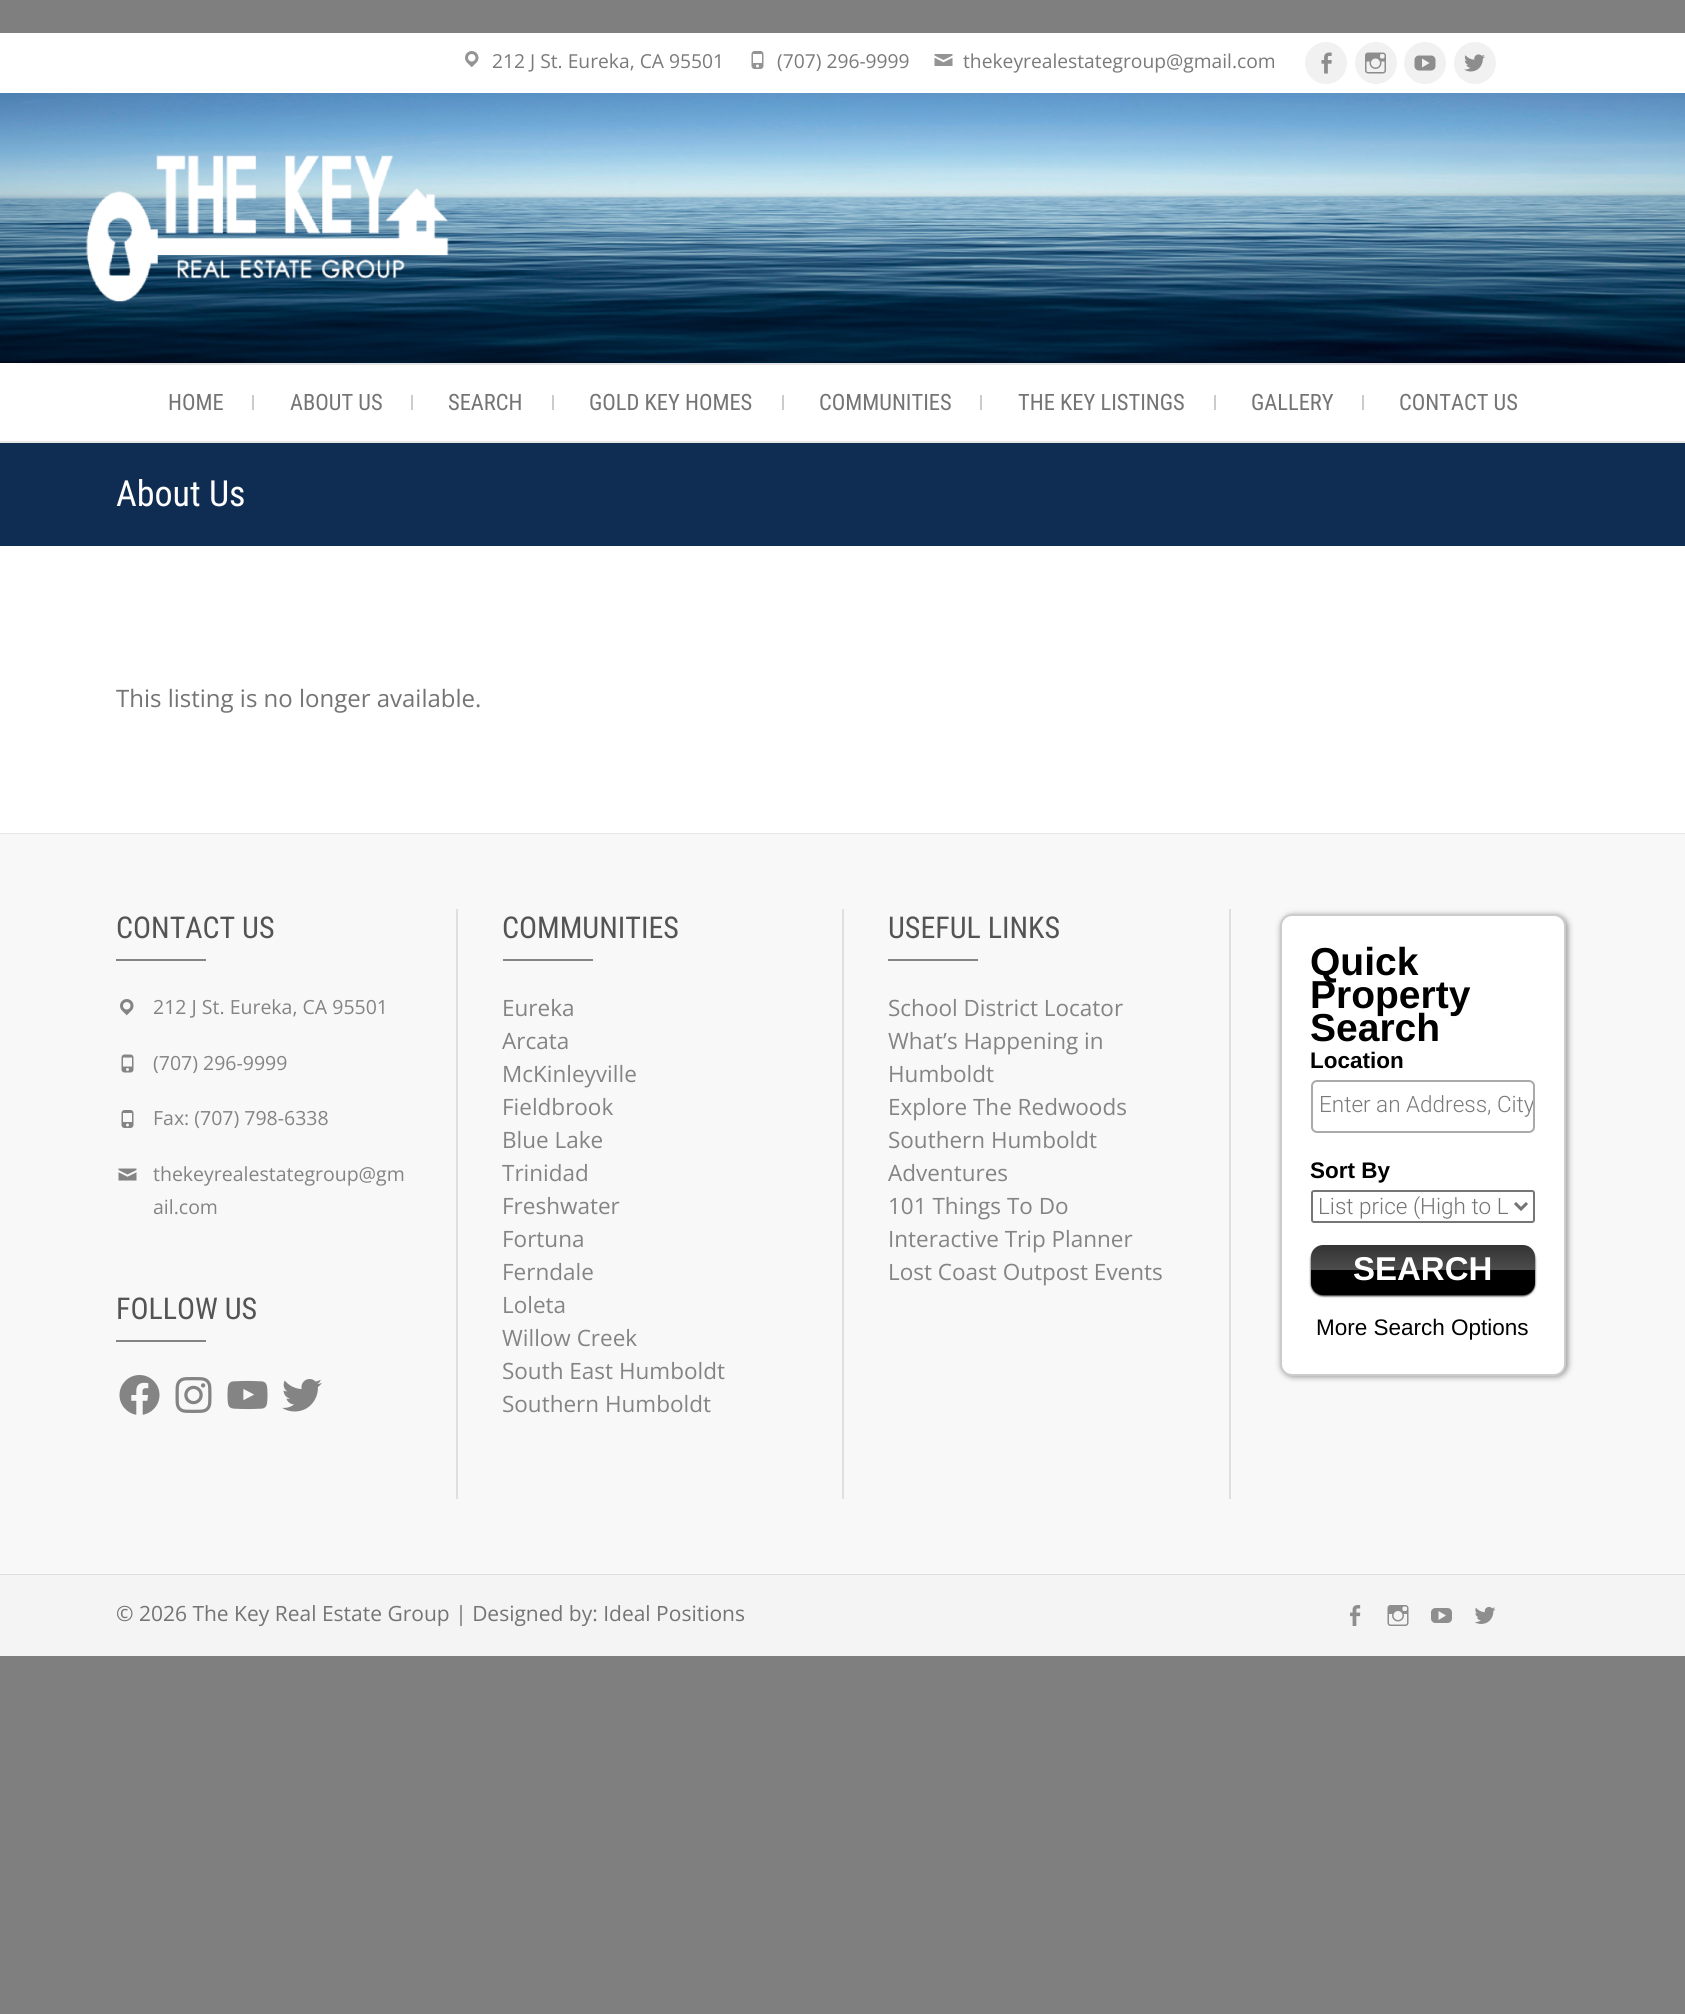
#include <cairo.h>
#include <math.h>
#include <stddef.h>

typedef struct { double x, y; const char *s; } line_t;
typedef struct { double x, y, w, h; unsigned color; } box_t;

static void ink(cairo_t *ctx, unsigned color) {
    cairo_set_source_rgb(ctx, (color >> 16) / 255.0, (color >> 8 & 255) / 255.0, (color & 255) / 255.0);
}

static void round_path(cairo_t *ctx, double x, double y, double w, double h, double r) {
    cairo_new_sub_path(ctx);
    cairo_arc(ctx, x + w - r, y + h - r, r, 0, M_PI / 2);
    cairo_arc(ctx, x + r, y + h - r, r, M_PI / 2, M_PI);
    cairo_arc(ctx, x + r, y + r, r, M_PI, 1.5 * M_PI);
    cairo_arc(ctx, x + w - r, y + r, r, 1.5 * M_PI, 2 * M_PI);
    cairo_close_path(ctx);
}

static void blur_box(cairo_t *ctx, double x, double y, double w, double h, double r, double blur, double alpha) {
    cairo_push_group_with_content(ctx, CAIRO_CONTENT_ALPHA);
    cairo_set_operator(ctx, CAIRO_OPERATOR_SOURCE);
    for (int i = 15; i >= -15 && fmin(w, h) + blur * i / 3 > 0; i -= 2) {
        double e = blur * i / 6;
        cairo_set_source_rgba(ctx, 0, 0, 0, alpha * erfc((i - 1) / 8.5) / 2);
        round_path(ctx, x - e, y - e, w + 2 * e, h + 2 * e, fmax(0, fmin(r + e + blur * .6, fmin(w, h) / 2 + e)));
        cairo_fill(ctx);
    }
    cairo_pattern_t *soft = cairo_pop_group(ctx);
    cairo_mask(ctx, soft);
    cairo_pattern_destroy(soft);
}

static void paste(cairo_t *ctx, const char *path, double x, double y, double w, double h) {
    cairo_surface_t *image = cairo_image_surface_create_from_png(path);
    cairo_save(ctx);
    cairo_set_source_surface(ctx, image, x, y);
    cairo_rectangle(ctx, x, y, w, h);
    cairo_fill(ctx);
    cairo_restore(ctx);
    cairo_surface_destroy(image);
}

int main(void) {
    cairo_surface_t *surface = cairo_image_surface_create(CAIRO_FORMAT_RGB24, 1685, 2014);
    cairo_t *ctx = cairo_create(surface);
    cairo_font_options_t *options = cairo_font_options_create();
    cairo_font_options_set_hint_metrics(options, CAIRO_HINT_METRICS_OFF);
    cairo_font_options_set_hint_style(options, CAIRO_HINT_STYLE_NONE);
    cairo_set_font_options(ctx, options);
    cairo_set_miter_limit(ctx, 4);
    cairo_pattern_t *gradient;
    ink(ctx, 0x7F7F7F);
    cairo_paint(ctx);
    ink(ctx, 0xFFFFFF);
    cairo_rectangle(ctx, 0, 33, 1685, 800);
    cairo_fill(ctx);
    paste(ctx, "media/1.png", 465, 51, 14, 17);
    cairo_select_font_face(ctx, "Open Sans", CAIRO_FONT_SLANT_NORMAL, CAIRO_FONT_WEIGHT_NORMAL);
    cairo_set_font_size(ctx, 19.25);
    ink(ctx, 0x7A7A7A);
    cairo_move_to(ctx, 492, 68);
    cairo_show_text(ctx, "212 J St. Eureka, CA 95501");
    paste(ctx, "media/2.png", 751, 51, 13, 18);
    cairo_move_to(ctx, 777, 68);
    cairo_show_text(ctx, "(707) 296-9999");
    paste(ctx, "media/3.png", 934, 54, 19, 12);
    cairo_move_to(ctx, 963, 68);
    cairo_show_text(ctx, "thekeyrealestategroup@gmail.com");
    ink(ctx, 0xF1F1F1);
    cairo_new_path(ctx);
    cairo_arc(ctx, 1326, 63, 21, 0, 2 * M_PI);
    cairo_fill(ctx);
    paste(ctx, "media/4.png", 1321, 52, 11, 22);
    cairo_arc(ctx, 1376, 63, 21, 0, 2 * M_PI);
    cairo_fill(ctx);
    paste(ctx, "media/5.png", 1365, 52, 21, 22);
    cairo_arc(ctx, 1425, 63, 21, 0, 2 * M_PI);
    cairo_fill(ctx);
    paste(ctx, "media/6.png", 1414, 55, 22, 16);
    cairo_arc(ctx, 1475, 63, 21, 0, 2 * M_PI);
    cairo_fill(ctx);
    paste(ctx, "media/7.png", 1464, 54, 21, 18);
    paste(ctx, "media/8.png", 0, 93, 1685, 270);
    ink(ctx, 0xE6E6E6);
    cairo_rectangle(ctx, 0, 441, 1685, 2);
    cairo_fill(ctx);
    gradient = cairo_pattern_create_linear(0, 364, 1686, 364);
    cairo_pattern_add_color_stop_rgba(gradient, 0, 1, 1, 1, 1);
    cairo_pattern_add_color_stop_rgba(gradient, 0.1, 0.902, 0.902, 0.902, 1);
    cairo_pattern_add_color_stop_rgba(gradient, 0.9, 0.902, 0.902, 0.902, 1);
    cairo_pattern_add_color_stop_rgba(gradient, 1, 1, 1, 1, 1);
    cairo_set_source(ctx, gradient);
    cairo_pattern_destroy(gradient);
    cairo_rectangle(ctx, 17, 363, 1652, 2);
    cairo_fill(ctx);
    cairo_select_font_face(ctx, "Roboto Condensed", CAIRO_FONT_SLANT_NORMAL, CAIRO_FONT_WEIGHT_NORMAL);
    cairo_set_font_size(ctx, 22.5);
    ink(ctx, 0x747474);
    cairo_move_to(ctx, 168, 410);
    cairo_show_text(ctx, "HOME");
    ink(ctx, 0xCCCCCC);
    cairo_rectangle(ctx, 252, 395, 2, 15);
    cairo_fill(ctx);
    ink(ctx, 0x747474);
    cairo_move_to(ctx, 290, 410);
    cairo_show_text(ctx, "ABOUT US");
    ink(ctx, 0xCCCCCC);
    cairo_rectangle(ctx, 411, 395, 2, 15);
    cairo_fill(ctx);
    ink(ctx, 0x747474);
    cairo_move_to(ctx, 448, 410);
    cairo_show_text(ctx, "SEARCH");
    ink(ctx, 0xCCCCCC);
    cairo_rectangle(ctx, 552, 395, 2, 15);
    cairo_fill(ctx);
    ink(ctx, 0x747474);
    cairo_move_to(ctx, 589, 410);
    cairo_show_text(ctx, "GOLD KEY HOMES");
    ink(ctx, 0xCCCCCC);
    cairo_rectangle(ctx, 782, 395, 2, 15);
    cairo_fill(ctx);
    ink(ctx, 0x747474);
    cairo_move_to(ctx, 819, 410);
    cairo_show_text(ctx, "COMMUNITIES");
    ink(ctx, 0xCCCCCC);
    cairo_rectangle(ctx, 980, 395, 2, 15);
    cairo_fill(ctx);
    ink(ctx, 0x747474);
    cairo_move_to(ctx, 1018, 410);
    cairo_show_text(ctx, "THE KEY LISTINGS");
    ink(ctx, 0xCCCCCC);
    cairo_rectangle(ctx, 1214, 395, 2, 15);
    cairo_fill(ctx);
    ink(ctx, 0x747474);
    cairo_move_to(ctx, 1251, 410);
    cairo_show_text(ctx, "GALLERY");
    ink(ctx, 0xCCCCCC);
    cairo_rectangle(ctx, 1362, 395, 2, 15);
    cairo_fill(ctx);
    ink(ctx, 0x747474);
    cairo_move_to(ctx, 1399, 410);
    cairo_show_text(ctx, "CONTACT US");
    ink(ctx, 0x0F2D52);
    cairo_rectangle(ctx, 0, 443, 1685, 103);
    cairo_fill(ctx);
    cairo_set_font_size(ctx, 36);
    ink(ctx, 0xFFFFFF);
    cairo_move_to(ctx, 116, 506);
    cairo_show_text(ctx, "About Us");
    cairo_select_font_face(ctx, "Open Sans", CAIRO_FONT_SLANT_NORMAL, CAIRO_FONT_WEIGHT_NORMAL);
    cairo_set_font_size(ctx, 24);
    ink(ctx, 0x747474);
    cairo_move_to(ctx, 116, 707);
    cairo_show_text(ctx, "This listing is no longer available.");
    {
        static const box_t items[] = {
            {0, 833, 1685, 1, 0xE6E6E6},
            {0, 834, 1685, 740, 0xF8F8F8},
            {0, 1574, 1685, 1, 0xDFDFDF},
            {456, 909, 2, 590, 0xDFDFDF},
        };
        for (size_t i = 0; i < sizeof items / sizeof *items; i++) {
            ink(ctx, items[i].color);
            cairo_rectangle(ctx, items[i].x, items[i].y, items[i].w, items[i].h);
            cairo_fill(ctx);
        }
    }
    cairo_select_font_face(ctx, "Roboto Condensed", CAIRO_FONT_SLANT_NORMAL, CAIRO_FONT_WEIGHT_NORMAL);
    cairo_set_font_size(ctx, 30);
    ink(ctx, 0x545454);
    cairo_move_to(ctx, 116, 938);
    cairo_show_text(ctx, "CONTACT US");
    ink(ctx, 0x848484);
    cairo_rectangle(ctx, 116, 959, 90, 2);
    cairo_fill(ctx);
    paste(ctx, "media/9.png", 120, 999, 14, 17);
    cairo_select_font_face(ctx, "Open Sans", CAIRO_FONT_SLANT_NORMAL, CAIRO_FONT_WEIGHT_NORMAL);
    cairo_set_font_size(ctx, 19.5);
    cairo_move_to(ctx, 153, 1014);
    cairo_show_text(ctx, "212 J St. Eureka, CA 95501");
    paste(ctx, "media/10.png", 121, 1054, 13, 19);
    cairo_move_to(ctx, 153, 1070);
    cairo_show_text(ctx, "(707) 296-9999");
    paste(ctx, "media/11.png", 121, 1110, 13, 18);
    cairo_move_to(ctx, 153, 1125);
    cairo_show_text(ctx, "Fax: (707) 798-6338");
    paste(ctx, "media/12.png", 118, 1168, 19, 13);
    cairo_move_to(ctx, 153, 1181);
    cairo_show_text(ctx, "thekeyrealestategroup@gm");
    cairo_move_to(ctx, 153, 1214);
    cairo_show_text(ctx, "ail.com");
    cairo_select_font_face(ctx, "Roboto Condensed", CAIRO_FONT_SLANT_NORMAL, CAIRO_FONT_WEIGHT_NORMAL);
    cairo_set_font_size(ctx, 30);
    ink(ctx, 0x545454);
    cairo_move_to(ctx, 116, 1319);
    cairo_show_text(ctx, "FOLLOW US");
    ink(ctx, 0x848484);
    cairo_rectangle(ctx, 116, 1340, 90, 2);
    cairo_fill(ctx);
    paste(ctx, "media/13.png", 119, 1375, 41, 40);
    paste(ctx, "media/14.png", 175, 1377, 37, 36);
    paste(ctx, "media/15.png", 227, 1380, 41, 30);
    paste(ctx, "media/16.png", 282, 1379, 40, 33);
    ink(ctx, 0xDFDFDF);
    cairo_rectangle(ctx, 842, 909, 2, 590);
    cairo_fill(ctx);
    ink(ctx, 0x545454);
    cairo_move_to(ctx, 502, 938);
    cairo_show_text(ctx, "COMMUNITIES");
    ink(ctx, 0x848484);
    cairo_rectangle(ctx, 503, 959, 90, 2);
    cairo_fill(ctx);
    cairo_select_font_face(ctx, "Open Sans", CAIRO_FONT_SLANT_NORMAL, CAIRO_FONT_WEIGHT_NORMAL);
    cairo_set_font_size(ctx, 22.5);
    {
        static const line_t items[] = {
            {502, 1016, "Eureka"},
            {502, 1049, "Arcata"},
            {502, 1082, "McKinleyville"},
            {502, 1115, "Fieldbrook"},
            {502, 1148, "Blue Lake"},
            {502, 1181, "Trinidad"},
            {502, 1214, "Freshwater"},
            {502, 1247, "Fortuna"},
            {502, 1280, "Ferndale"},
            {502, 1313, "Loleta"},
            {502, 1346, "Willow Creek"},
            {502, 1379, "South East Humboldt"},
            {502, 1412, "Southern Humboldt"},
        };
        for (size_t i = 0; i < sizeof items / sizeof *items; i++) {
            cairo_move_to(ctx, items[i].x, items[i].y);
            cairo_show_text(ctx, items[i].s);
        }
    }
    ink(ctx, 0xDFDFDF);
    cairo_rectangle(ctx, 1229, 909, 2, 590);
    cairo_fill(ctx);
    cairo_select_font_face(ctx, "Roboto Condensed", CAIRO_FONT_SLANT_NORMAL, CAIRO_FONT_WEIGHT_NORMAL);
    cairo_set_font_size(ctx, 30);
    ink(ctx, 0x545454);
    cairo_move_to(ctx, 888, 938);
    cairo_show_text(ctx, "USEFUL LINKS");
    ink(ctx, 0x848484);
    cairo_rectangle(ctx, 888, 959, 90, 2);
    cairo_fill(ctx);
    cairo_select_font_face(ctx, "Open Sans", CAIRO_FONT_SLANT_NORMAL, CAIRO_FONT_WEIGHT_NORMAL);
    cairo_set_font_size(ctx, 22.5);
    {
        static const line_t items[] = {
            {888, 1016, "School District Locator"},
            {888, 1049, "What’s Happening in"},
            {888, 1082, "Humboldt"},
            {888, 1115, "Explore The Redwoods"},
            {888, 1148, "Southern Humboldt"},
            {888, 1181, "Adventures"},
            {888, 1214, "101 Things To Do"},
            {888, 1247, "Interactive Trip Planner"},
            {888, 1280, "Lost Coast Outpost Events"},
        };
        for (size_t i = 0; i < sizeof items / sizeof *items; i++) {
            cairo_move_to(ctx, items[i].x, items[i].y);
            cairo_show_text(ctx, items[i].s);
        }
    }
    ink(ctx, 0x000000);
    blur_box(ctx, 1281, 915, 287, 462, 12, 3, 0.4);
    ink(ctx, 0xFFFFFF);
    round_path(ctx, 1281, 915, 284, 460, 11);
    cairo_fill_preserve(ctx);
    ink(ctx, 0xCCCCCC);
    cairo_stroke(ctx);
    cairo_select_font_face(ctx, "Liberation Sans", CAIRO_FONT_SLANT_NORMAL, CAIRO_FONT_WEIGHT_BOLD);
    cairo_set_font_size(ctx, 39);
    ink(ctx, 0x000000);
    {
        static const line_t items[] = {
            {1310, 975, "Quick"},
            {1310, 1008, "Property"},
            {1310, 1041, "Search"},
        };
        for (size_t i = 0; i < sizeof items / sizeof *items; i++) {
            cairo_move_to(ctx, items[i].x, items[i].y);
            cairo_show_text(ctx, items[i].s);
        }
    }
    cairo_set_font_size(ctx, 22.5);
    cairo_move_to(ctx, 1310, 1068);
    cairo_show_text(ctx, "Location");
    round_path(ctx, 1312, 1081, 222, 51, 5);
    ink(ctx, 0xAAAAAA);
    cairo_stroke(ctx);
    cairo_save(ctx);
    cairo_rectangle(ctx, 1320, 1092, 213, 27);
    cairo_clip(ctx);
    cairo_select_font_face(ctx, "Roboto Light", CAIRO_FONT_SLANT_NORMAL, CAIRO_FONT_WEIGHT_NORMAL);
    ink(ctx, 0x7A7A7A);
    cairo_move_to(ctx, 1319, 1112);
    cairo_show_text(ctx, "Enter an Address, City");
    cairo_restore(ctx);
    ink(ctx, 0x000000);
    cairo_move_to(ctx, 1310, 1178);
    cairo_show_text(ctx, "Sort By");
    round_path(ctx, 1312, 1191, 222, 31, 2);
    ink(ctx, 0x767676);
    cairo_stroke(ctx);
    cairo_new_path(ctx);
    cairo_move_to(ctx, 1515, 1203);
    cairo_line_to(ctx, 1521, 1209);
    cairo_line_to(ctx, 1527, 1203);
    ink(ctx, 0x747474);
    cairo_set_line_width(ctx, 3);
    cairo_stroke(ctx);
    cairo_select_font_face(ctx, "Roboto Light", CAIRO_FONT_SLANT_NORMAL, CAIRO_FONT_WEIGHT_NORMAL);
    cairo_move_to(ctx, 1318, 1214);
    cairo_show_text(ctx, "List price (High to L");
    ink(ctx, 0x111111);
    blur_box(ctx, 1311, 1247, 224, 49, 12, 1, 1);
    gradient = cairo_pattern_create_linear(1423, 1245, 1423, 1295);
    cairo_pattern_add_color_stop_rgba(gradient, 0, 0.2, 0.2, 0.2, 1);
    cairo_pattern_add_color_stop_rgba(gradient, 0.5, 0.302, 0.302, 0.302, 1);
    cairo_pattern_add_color_stop_rgba(gradient, 0.51, 0, 0, 0, 1);
    cairo_pattern_add_color_stop_rgba(gradient, 1, 0, 0, 0, 1);
    cairo_set_source(ctx, gradient);
    cairo_pattern_destroy(gradient);
    round_path(ctx, 1311, 1245, 224, 50, 12);
    cairo_fill(ctx);
    cairo_select_font_face(ctx, "Liberation Sans", CAIRO_FONT_SLANT_NORMAL, CAIRO_FONT_WEIGHT_BOLD);
    cairo_set_font_size(ctx, 33);
    ink(ctx, 0xFFFFFF);
    cairo_move_to(ctx, 1353, 1280);
    cairo_show_text(ctx, "SEARCH");
    cairo_select_font_face(ctx, "Liberation Sans", CAIRO_FONT_SLANT_NORMAL, CAIRO_FONT_WEIGHT_NORMAL);
    cairo_set_font_size(ctx, 22.5);
    ink(ctx, 0x000000);
    cairo_move_to(ctx, 1316, 1335);
    cairo_show_text(ctx, "More Search Options");
    ink(ctx, 0xF4F4F4);
    cairo_rectangle(ctx, 0, 1575, 1685, 81);
    cairo_fill(ctx);
    cairo_select_font_face(ctx, "Open Sans", CAIRO_FONT_SLANT_NORMAL, CAIRO_FONT_WEIGHT_NORMAL);
    cairo_set_font_size(ctx, 21);
    ink(ctx, 0x747474);
    cairo_move_to(ctx, 116, 1621);
    cairo_show_text(ctx, "© 2026 The Key Real Estate Group | Designed by: Ideal Positions");
    paste(ctx, "media/17.png", 1350, 1605, 11, 21);
    paste(ctx, "media/18.png", 1387, 1605, 22, 21);
    paste(ctx, "media/19.png", 1431, 1608, 21, 15);
    paste(ctx, "media/20.png", 1474, 1607, 22, 17);
    cairo_surface_write_to_png(surface, "image.png");
    cairo_font_options_destroy(options);
    cairo_destroy(ctx);
    cairo_surface_destroy(surface);
    return 0;
}
